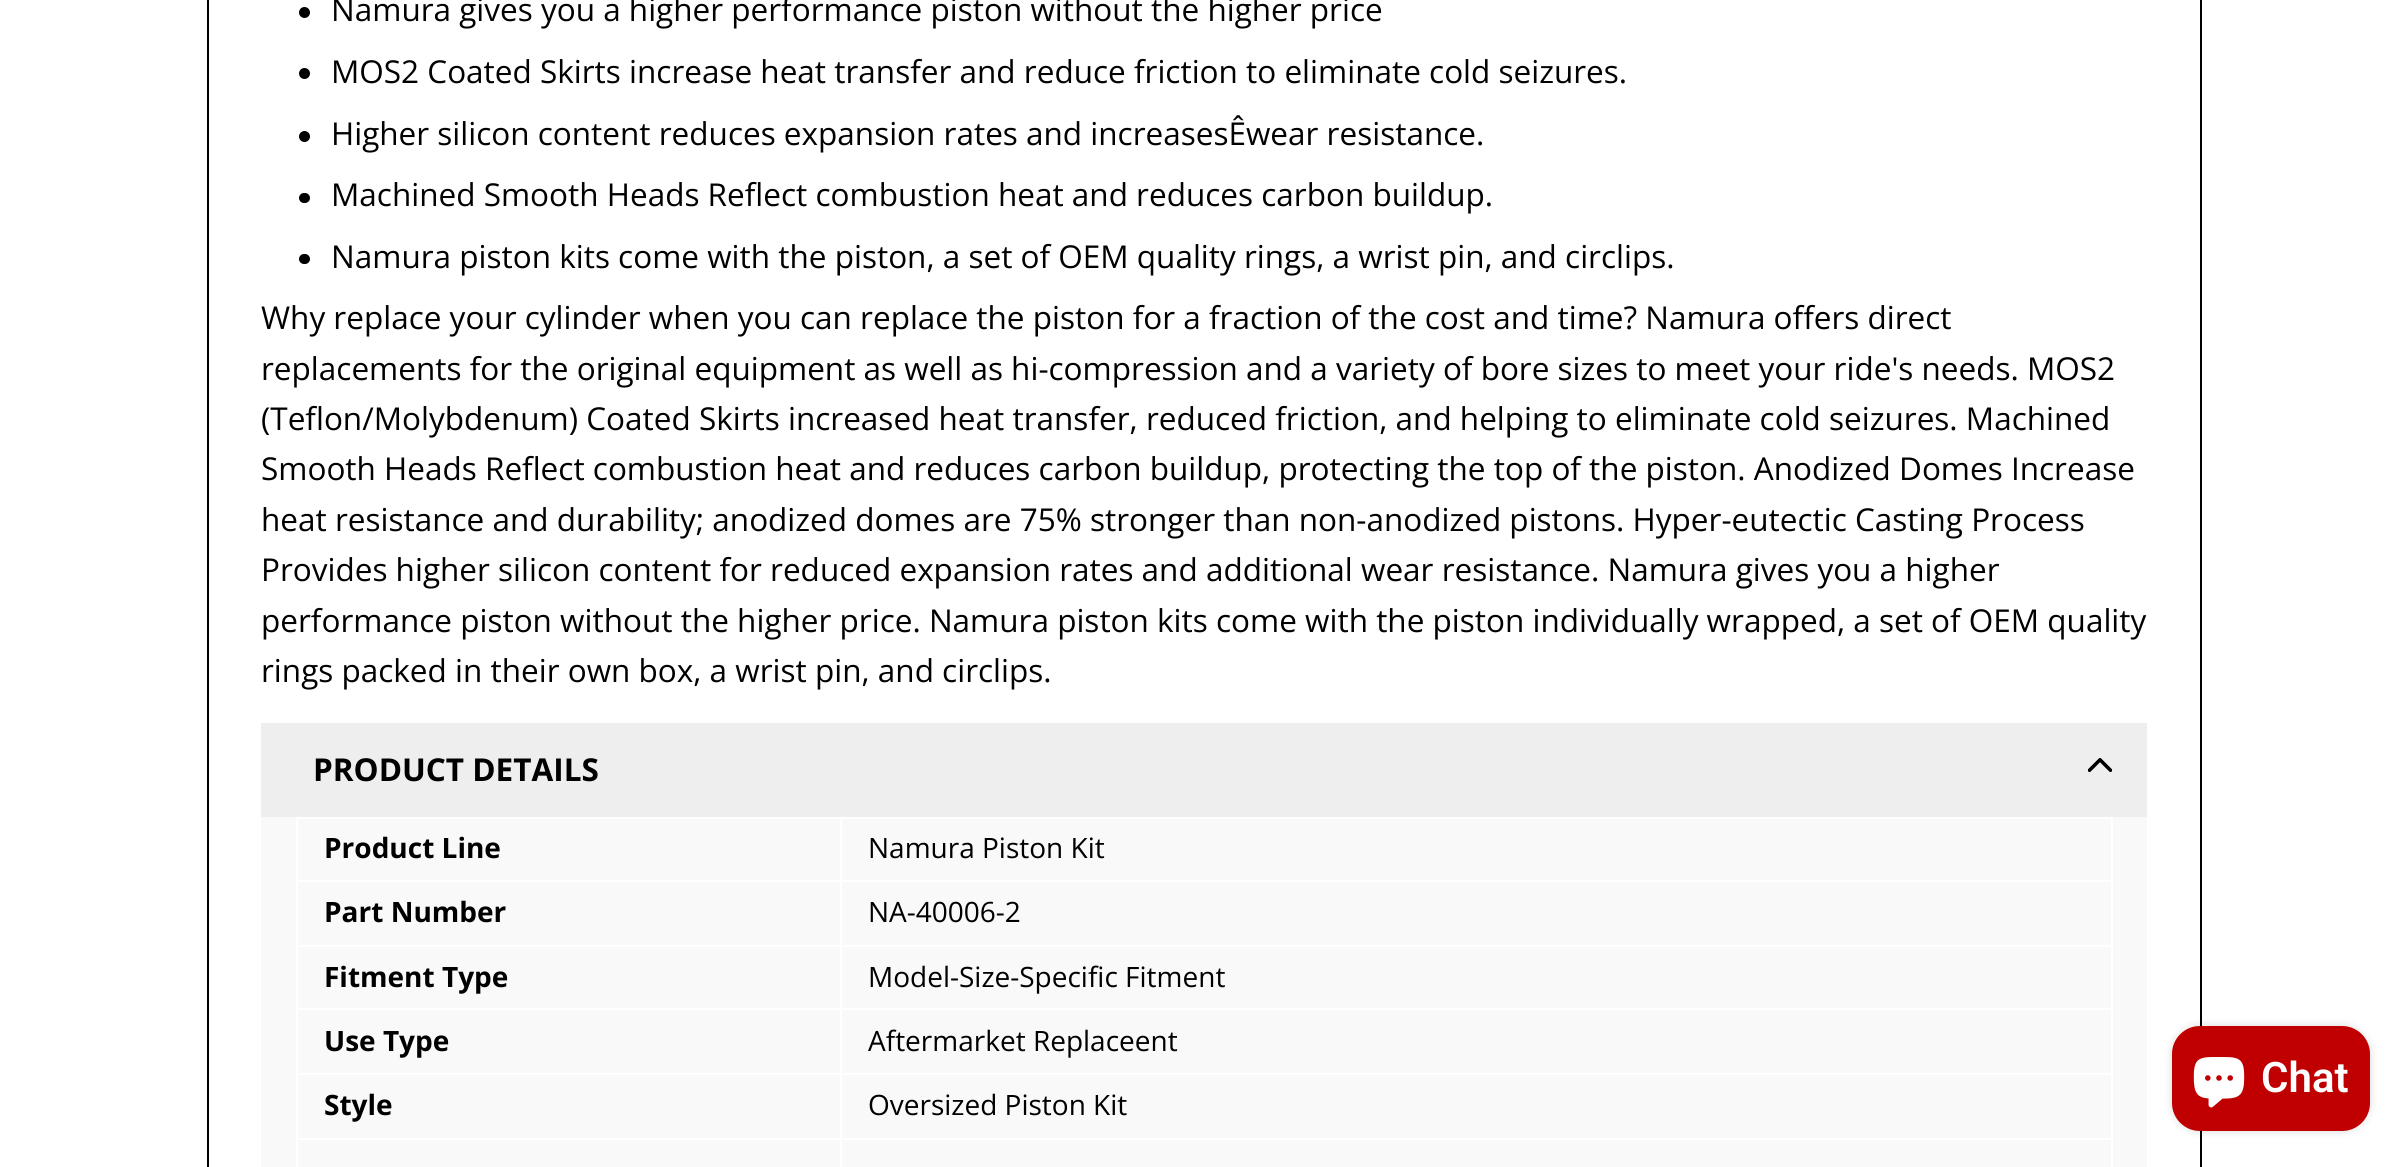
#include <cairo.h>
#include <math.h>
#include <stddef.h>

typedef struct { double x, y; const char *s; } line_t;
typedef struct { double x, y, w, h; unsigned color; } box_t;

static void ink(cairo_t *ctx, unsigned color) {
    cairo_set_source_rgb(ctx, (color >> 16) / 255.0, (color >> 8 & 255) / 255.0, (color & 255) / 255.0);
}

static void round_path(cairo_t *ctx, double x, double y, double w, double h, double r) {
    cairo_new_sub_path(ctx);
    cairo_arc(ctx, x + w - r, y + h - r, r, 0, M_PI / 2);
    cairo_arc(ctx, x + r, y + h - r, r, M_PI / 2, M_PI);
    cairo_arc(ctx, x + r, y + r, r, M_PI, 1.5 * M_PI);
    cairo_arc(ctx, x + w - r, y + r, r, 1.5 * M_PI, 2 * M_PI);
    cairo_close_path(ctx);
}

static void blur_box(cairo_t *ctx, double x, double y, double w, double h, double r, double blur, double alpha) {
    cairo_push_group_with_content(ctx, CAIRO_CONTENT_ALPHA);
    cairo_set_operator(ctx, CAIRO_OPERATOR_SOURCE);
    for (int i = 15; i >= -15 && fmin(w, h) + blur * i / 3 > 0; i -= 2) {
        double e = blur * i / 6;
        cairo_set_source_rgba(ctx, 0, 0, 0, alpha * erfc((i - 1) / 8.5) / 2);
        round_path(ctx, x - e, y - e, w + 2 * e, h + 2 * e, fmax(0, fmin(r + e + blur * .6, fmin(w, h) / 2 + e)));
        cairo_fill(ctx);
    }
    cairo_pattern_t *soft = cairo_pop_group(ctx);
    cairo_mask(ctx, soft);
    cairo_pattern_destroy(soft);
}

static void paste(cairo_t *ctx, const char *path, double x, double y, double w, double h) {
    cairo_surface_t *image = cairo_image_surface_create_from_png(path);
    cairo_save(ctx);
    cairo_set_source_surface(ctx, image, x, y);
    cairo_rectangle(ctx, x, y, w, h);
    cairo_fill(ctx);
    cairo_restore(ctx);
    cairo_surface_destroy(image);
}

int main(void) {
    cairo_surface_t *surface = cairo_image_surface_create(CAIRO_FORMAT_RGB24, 2407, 1167);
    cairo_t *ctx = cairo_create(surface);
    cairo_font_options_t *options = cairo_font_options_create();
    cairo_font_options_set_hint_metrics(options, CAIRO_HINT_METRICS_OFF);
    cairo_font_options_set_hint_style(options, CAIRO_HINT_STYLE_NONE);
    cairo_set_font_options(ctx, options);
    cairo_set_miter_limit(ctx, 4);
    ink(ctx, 0xFFFFFF);
    cairo_paint(ctx);
    ink(ctx, 0x000000);
    cairo_rectangle(ctx, 2200, 0, 2, 1167);
    cairo_fill(ctx);
    cairo_rectangle(ctx, 207, 0, 2, 1167);
    cairo_fill(ctx);
    cairo_arc(ctx, 304.5, 12.5, 5.5, 0, 2 * M_PI);
    cairo_fill(ctx);
    cairo_select_font_face(ctx, "Open Sans", CAIRO_FONT_SLANT_NORMAL, CAIRO_FONT_WEIGHT_NORMAL);
    cairo_set_font_size(ctx, 31.5);
    cairo_move_to(ctx, 331, 21);
    cairo_show_text(ctx, "Namura gives you a higher performance piston without the higher price");
    cairo_new_path(ctx);
    cairo_arc(ctx, 304.5, 73.5, 5.5, 0, 2 * M_PI);
    cairo_fill(ctx);
    cairo_move_to(ctx, 331, 83);
    cairo_show_text(ctx, "MOS2 Coated Skirts increase heat transfer and reduce friction to eliminate cold seizures.");
    cairo_new_path(ctx);
    cairo_arc(ctx, 304.5, 136.5, 5.5, 0, 2 * M_PI);
    cairo_fill(ctx);
    cairo_move_to(ctx, 331, 145);
    cairo_show_text(ctx, "Higher silicon content reduces expansion rates and increasesÊwear resistance.");
    round_path(ctx, 299, 193, 11, 10, 5);
    cairo_fill(ctx);
    cairo_move_to(ctx, 331, 206);
    cairo_show_text(ctx, "Machined Smooth Heads Reflect combustion heat and reduces carbon buildup.");
    round_path(ctx, 299, 254, 11, 10, 5);
    cairo_fill(ctx);
    {
        static const line_t items[] = {
            {331, 268, "Namura piston kits come with the piston, a set of OEM quality rings, a wrist pin, and circlips."},
            {261, 329, "Why replace your cylinder when you can replace the piston for a fraction of the cost and time? Namura offers direct"},
            {261, 380, "replacements for the original equipment as well as hi-compression and a variety of bore sizes to meet your ride's needs. MOS2"},
            {261, 430, "(Teflon/Molybdenum) Coated Skirts increased heat transfer, reduced friction, and helping to eliminate cold seizures. Machined"},
            {261, 480, "Smooth Heads Reflect combustion heat and reduces carbon buildup, protecting the top of the piston. Anodized Domes Increase"},
            {261, 531, "heat resistance and durability; anodized domes are 75% stronger than non-anodized pistons. Hyper-eutectic Casting Process"},
            {261, 581, "Provides higher silicon content for reduced expansion rates and additional wear resistance. Namura gives you a higher"},
            {261, 632, "performance piston without the higher price. Namura piston kits come with the piston individually wrapped, a set of OEM quality"},
            {261, 682, "rings packed in their own box, a wrist pin, and circlips."},
        };
        for (size_t i = 0; i < sizeof items / sizeof *items; i++) {
            cairo_move_to(ctx, items[i].x, items[i].y);
            cairo_show_text(ctx, items[i].s);
        }
    }
    ink(ctx, 0xEFEEEE);
    cairo_rectangle(ctx, 261, 723, 1886, 94);
    cairo_fill(ctx);
    cairo_select_font_face(ctx, "Open Sans", CAIRO_FONT_SLANT_NORMAL, CAIRO_FONT_WEIGHT_BOLD);
    ink(ctx, 0x000000);
    cairo_move_to(ctx, 313, 781);
    cairo_show_text(ctx, "PRODUCT DETAILS");
    paste(ctx, "media/1.png", 2088, 758, 24, 14);
    {
        static const box_t items[] = {
            {261, 817, 1886, 350, 0xF9F9F9},
            {840, 817, 1272, 2, 0xFFFFFF},
            {840, 880, 1272, 2, 0xFFFFFF},
            {840, 945, 1272, 2, 0xFFFFFF},
            {840, 1008, 1272, 2, 0xFFFFFF},
            {840, 1073, 1272, 2, 0xFFFFFF},
            {840, 1138, 1272, 2, 0xFFFFFF},
            {840, 1138, 2, 29, 0xFFFFFF},
            {296, 1138, 546, 2, 0xFFFFFF},
            {840, 1073, 2, 66, 0xFFFFFF},
            {296, 1073, 546, 2, 0xFFFFFF},
            {840, 1008, 2, 67, 0xFFFFFF},
            {296, 1008, 546, 2, 0xFFFFFF},
            {840, 945, 2, 65, 0xFFFFFF},
            {296, 945, 546, 2, 0xFFFFFF},
            {840, 880, 2, 67, 0xFFFFFF},
            {296, 880, 546, 2, 0xFFFFFF},
            {840, 817, 2, 65, 0xFFFFFF},
            {296, 817, 546, 2, 0xFFFFFF},
            {296, 1138, 2, 29, 0xFFFFFF},
            {296, 1073, 2, 66, 0xFFFFFF},
            {296, 1008, 2, 67, 0xFFFFFF},
            {296, 945, 2, 65, 0xFFFFFF},
            {296, 880, 2, 67, 0xFFFFFF},
            {296, 817, 2, 65, 0xFFFFFF},
        };
        for (size_t i = 0; i < sizeof items / sizeof *items; i++) {
            ink(ctx, items[i].color);
            cairo_rectangle(ctx, items[i].x, items[i].y, items[i].w, items[i].h);
            cairo_fill(ctx);
        }
    }
    cairo_set_font_size(ctx, 28);
    ink(ctx, 0x000000);
    cairo_move_to(ctx, 324, 858);
    cairo_show_text(ctx, "Product Line");
    {
        static const box_t items[] = {
            {2111, 1138, 2, 29, 0xFFFFFF},
            {2111, 1073, 2, 66, 0xFFFFFF},
            {2111, 1008, 2, 67, 0xFFFFFF},
            {2111, 945, 2, 65, 0xFFFFFF},
            {2111, 880, 2, 67, 0xFFFFFF},
            {2111, 817, 2, 65, 0xFFFFFF},
        };
        for (size_t i = 0; i < sizeof items / sizeof *items; i++) {
            ink(ctx, items[i].color);
            cairo_rectangle(ctx, items[i].x, items[i].y, items[i].w, items[i].h);
            cairo_fill(ctx);
        }
    }
    cairo_select_font_face(ctx, "Open Sans", CAIRO_FONT_SLANT_NORMAL, CAIRO_FONT_WEIGHT_NORMAL);
    ink(ctx, 0x000000);
    cairo_move_to(ctx, 868, 858);
    cairo_show_text(ctx, "Namura Piston Kit");
    cairo_select_font_face(ctx, "Open Sans", CAIRO_FONT_SLANT_NORMAL, CAIRO_FONT_WEIGHT_BOLD);
    cairo_move_to(ctx, 324, 922);
    cairo_show_text(ctx, "Part Number");
    cairo_select_font_face(ctx, "Open Sans", CAIRO_FONT_SLANT_NORMAL, CAIRO_FONT_WEIGHT_NORMAL);
    cairo_move_to(ctx, 868, 922);
    cairo_show_text(ctx, "NA-40006-2");
    cairo_select_font_face(ctx, "Open Sans", CAIRO_FONT_SLANT_NORMAL, CAIRO_FONT_WEIGHT_BOLD);
    cairo_move_to(ctx, 324, 987);
    cairo_show_text(ctx, "Fitment Type");
    cairo_select_font_face(ctx, "Open Sans", CAIRO_FONT_SLANT_NORMAL, CAIRO_FONT_WEIGHT_NORMAL);
    cairo_move_to(ctx, 868, 987);
    cairo_show_text(ctx, "Model-Size-Specific Fitment");
    cairo_select_font_face(ctx, "Open Sans", CAIRO_FONT_SLANT_NORMAL, CAIRO_FONT_WEIGHT_BOLD);
    cairo_move_to(ctx, 324, 1051);
    cairo_show_text(ctx, "Use Type");
    cairo_select_font_face(ctx, "Open Sans", CAIRO_FONT_SLANT_NORMAL, CAIRO_FONT_WEIGHT_NORMAL);
    cairo_move_to(ctx, 868, 1051);
    cairo_show_text(ctx, "Aftermarket Replaceent");
    cairo_select_font_face(ctx, "Open Sans", CAIRO_FONT_SLANT_NORMAL, CAIRO_FONT_WEIGHT_BOLD);
    cairo_move_to(ctx, 324, 1115);
    cairo_show_text(ctx, "Style");
    cairo_select_font_face(ctx, "Open Sans", CAIRO_FONT_SLANT_NORMAL, CAIRO_FONT_WEIGHT_NORMAL);
    cairo_move_to(ctx, 868, 1115);
    cairo_show_text(ctx, "Oversized Piston Kit");
    ink(ctx, 0x000000);
    blur_box(ctx, 2172, 1026, 198, 105, 28, 4.5, 0.15);
    ink(ctx, 0xC00000);
    round_path(ctx, 2172, 1026, 198, 105, 28);
    cairo_fill(ctx);
    paste(ctx, "media/2.png", 2193, 1057, 52, 51);
    cairo_select_font_face(ctx, "Roboto SemiBold", CAIRO_FONT_SLANT_NORMAL, CAIRO_FONT_WEIGHT_NORMAL);
    cairo_set_font_size(ctx, 42);
    ink(ctx, 0xFFFFFF);
    cairo_move_to(ctx, 2261, 1092);
    cairo_show_text(ctx, "Chat");
    cairo_surface_write_to_png(surface, "image.png");
    cairo_font_options_destroy(options);
    cairo_destroy(ctx);
    cairo_surface_destroy(surface);
    return 0;
}
